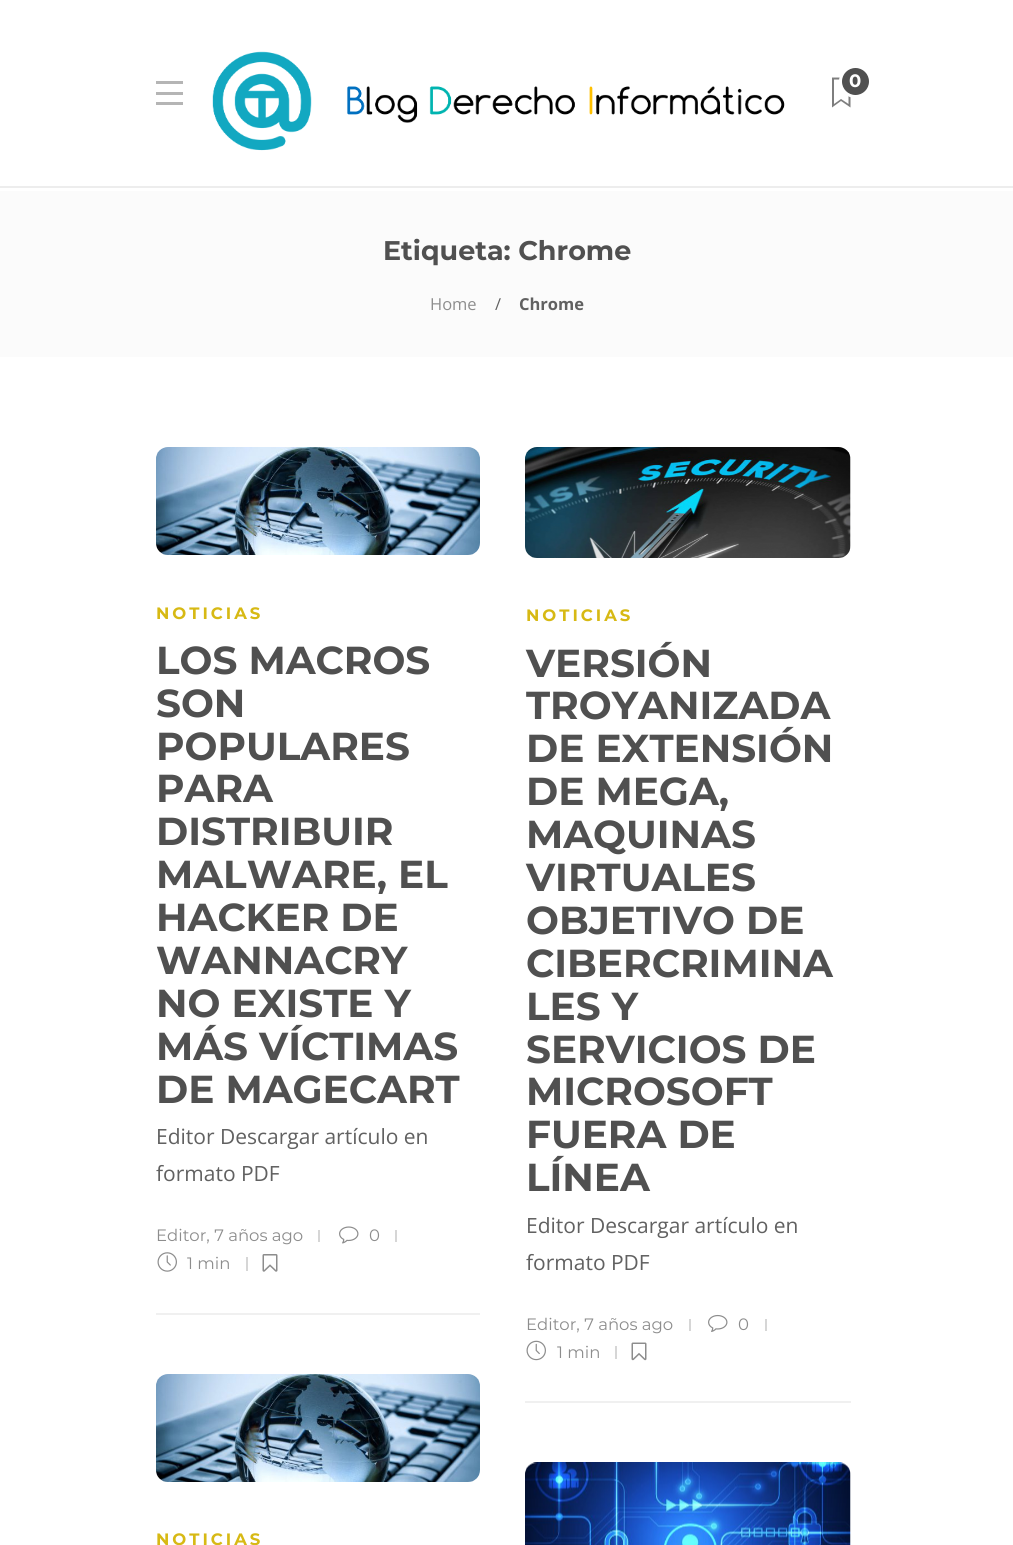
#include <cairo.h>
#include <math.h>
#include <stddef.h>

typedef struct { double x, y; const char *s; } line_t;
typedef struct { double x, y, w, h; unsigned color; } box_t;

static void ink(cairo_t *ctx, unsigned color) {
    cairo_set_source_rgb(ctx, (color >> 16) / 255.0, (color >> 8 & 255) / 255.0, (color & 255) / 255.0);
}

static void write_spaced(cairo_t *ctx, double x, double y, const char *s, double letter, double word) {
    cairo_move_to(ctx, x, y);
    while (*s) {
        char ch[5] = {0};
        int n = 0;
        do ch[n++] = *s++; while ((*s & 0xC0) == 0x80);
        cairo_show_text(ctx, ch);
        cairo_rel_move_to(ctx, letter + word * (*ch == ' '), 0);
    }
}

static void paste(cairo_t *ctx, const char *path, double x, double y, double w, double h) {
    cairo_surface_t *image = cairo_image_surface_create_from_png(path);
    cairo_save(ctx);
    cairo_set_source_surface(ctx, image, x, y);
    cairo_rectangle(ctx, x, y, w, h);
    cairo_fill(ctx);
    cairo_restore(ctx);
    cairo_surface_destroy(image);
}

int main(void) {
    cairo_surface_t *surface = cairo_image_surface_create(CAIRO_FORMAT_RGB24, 1013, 1545);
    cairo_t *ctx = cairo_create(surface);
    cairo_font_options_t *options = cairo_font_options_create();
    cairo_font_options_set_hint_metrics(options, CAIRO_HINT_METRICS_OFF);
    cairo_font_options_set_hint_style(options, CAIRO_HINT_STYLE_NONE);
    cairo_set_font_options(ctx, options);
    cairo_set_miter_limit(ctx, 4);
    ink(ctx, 0xFFFFFF);
    cairo_paint(ctx);
    {
        static const box_t items[] = {
            {0, 186, 1013, 2, 0xEDEDED},
            {156, 81, 27, 3, 0xB5B5B5},
            {156, 92, 27, 3, 0xB5B5B5},
            {156, 102, 27, 3, 0xB5B5B5},
        };
        for (size_t i = 0; i < sizeof items / sizeof *items; i++) {
            ink(ctx, items[i].color);
            cairo_rectangle(ctx, items[i].x, items[i].y, items[i].w, items[i].h);
            cairo_fill(ctx);
        }
    }
    paste(ctx, "media/1.png", 212, 51, 573, 100);
    ink(ctx, 0x7E7E7E);
    cairo_new_path(ctx);
    cairo_move_to(ctx, 832, 77.5);
    cairo_line_to(ctx, 832, 107.5);
    cairo_line_to(ctx, 841, 101);
    cairo_line_to(ctx, 850.5, 107.5);
    cairo_line_to(ctx, 850.5, 77.5);
    cairo_close_path(ctx);
    cairo_move_to(ctx, 848.5, 104);
    cairo_line_to(ctx, 841, 99);
    cairo_line_to(ctx, 834, 104);
    cairo_line_to(ctx, 834, 79.5);
    cairo_line_to(ctx, 848.5, 79.5);
    cairo_close_path(ctx);
    cairo_fill(ctx);
    ink(ctx, 0x505050);
    cairo_arc(ctx, 855.5, 81.5, 15, 0, 2 * M_PI);
    cairo_fill_preserve(ctx);
    ink(ctx, 0xFFFFFF);
    cairo_set_line_width(ctx, 3);
    cairo_stroke(ctx);
    cairo_select_font_face(ctx, "Montserrat", CAIRO_FONT_SLANT_NORMAL, CAIRO_FONT_WEIGHT_BOLD);
    cairo_set_font_size(ctx, 18);
    cairo_move_to(ctx, 849, 87);
    cairo_show_text(ctx, "0");
    ink(ctx, 0xFBFBFB);
    cairo_rectangle(ctx, 0, 191, 1013, 166);
    cairo_fill(ctx);
    cairo_set_font_size(ctx, 27);
    ink(ctx, 0x505050);
    cairo_move_to(ctx, 383, 260);
    cairo_show_text(ctx, "Etiqueta: Chrome");
    cairo_select_font_face(ctx, "Open Sans", CAIRO_FONT_SLANT_NORMAL, CAIRO_FONT_WEIGHT_NORMAL);
    cairo_set_font_size(ctx, 16.5);
    ink(ctx, 0x8D8D8D);
    cairo_move_to(ctx, 430, 310);
    cairo_show_text(ctx, "Home");
    ink(ctx, 0x616161);
    cairo_move_to(ctx, 495, 310);
    cairo_show_text(ctx, "/");
    cairo_select_font_face(ctx, "Open Sans", CAIRO_FONT_SLANT_NORMAL, CAIRO_FONT_WEIGHT_BOLD);
    cairo_move_to(ctx, 519, 310);
    cairo_show_text(ctx, "Chrome");
    ink(ctx, 0xF0F0F0);
    cairo_rectangle(ctx, 156, 1313, 324, 2);
    cairo_fill(ctx);
    paste(ctx, "media/2.png", 156, 447, 324, 108);
    cairo_select_font_face(ctx, "Montserrat", CAIRO_FONT_SLANT_NORMAL, CAIRO_FONT_WEIGHT_BOLD);
    ink(ctx, 0xD7B914);
    write_spaced(ctx, 156, 619, "NOTICIAS", 3, 0);
    cairo_set_font_size(ctx, 39);
    ink(ctx, 0x505050);
    {
        static const line_t items[] = {
            {156, 674, "LOS MACROS"},
            {156, 717, "SON"},
            {156, 760, "POPULARES"},
            {156, 802, "PARA"},
            {156, 845, "DISTRIBUIR"},
            {156, 888, "MALWARE, EL"},
            {156, 931, "HACKER DE"},
            {156, 974, "WANNACRY"},
            {156, 1017, "NO EXISTE Y"},
            {156, 1060, "MÁS VÍCTIMAS"},
            {156, 1103, "DE MAGECART"},
        };
        for (size_t i = 0; i < sizeof items / sizeof *items; i++) {
            cairo_move_to(ctx, items[i].x, items[i].y);
            cairo_show_text(ctx, items[i].s);
        }
    }
    cairo_select_font_face(ctx, "Open Sans", CAIRO_FONT_SLANT_NORMAL, CAIRO_FONT_WEIGHT_NORMAL);
    cairo_set_font_size(ctx, 21);
    ink(ctx, 0x616161);
    cairo_move_to(ctx, 156, 1144);
    cairo_show_text(ctx, "Editor Descargar artículo en");
    cairo_move_to(ctx, 156, 1181);
    cairo_show_text(ctx, "formato PDF");
    cairo_select_font_face(ctx, "Montserrat", CAIRO_FONT_SLANT_NORMAL, CAIRO_FONT_WEIGHT_NORMAL);
    cairo_set_font_size(ctx, 16.5);
    ink(ctx, 0x8D8D8D);
    cairo_move_to(ctx, 156, 1241);
    cairo_show_text(ctx, "Editor, 7 años ago");
    ink(ctx, 0xD6D6D6);
    cairo_rectangle(ctx, 318, 1230, 2, 12);
    cairo_fill(ctx);
    paste(ctx, "media/3.png", 339, 1226, 20, 18);
    ink(ctx, 0x8D8D8D);
    cairo_move_to(ctx, 369, 1241);
    cairo_show_text(ctx, "0");
    ink(ctx, 0xD6D6D6);
    cairo_rectangle(ctx, 395, 1230, 2, 12);
    cairo_fill(ctx);
    paste(ctx, "media/4.png", 157, 1252, 20, 20);
    ink(ctx, 0x8D8D8D);
    cairo_move_to(ctx, 187, 1269);
    cairo_show_text(ctx, "1 min");
    ink(ctx, 0xD6D6D6);
    cairo_rectangle(ctx, 246, 1257, 2, 14);
    cairo_fill(ctx);
    paste(ctx, "media/5.png", 262, 1254, 16, 18);
    ink(ctx, 0xF0F0F0);
    cairo_rectangle(ctx, 525, 1401, 326, 2);
    cairo_fill(ctx);
    paste(ctx, "media/6.png", 525, 447, 326, 111);
    cairo_select_font_face(ctx, "Montserrat", CAIRO_FONT_SLANT_NORMAL, CAIRO_FONT_WEIGHT_BOLD);
    ink(ctx, 0xD7B914);
    write_spaced(ctx, 526, 621, "NOTICIAS", 3, 0);
    cairo_set_font_size(ctx, 39);
    ink(ctx, 0x505050);
    {
        static const line_t items[] = {
            {526, 677, "VERSIÓN"},
            {526, 719, "TROYANIZADA"},
            {526, 762, "DE EXTENSIÓN"},
            {526, 805, "DE MEGA,"},
            {526, 848, "MAQUINAS"},
            {526, 891, "VIRTUALES"},
            {526, 934, "OBJETIVO DE"},
            {526, 977, "CIBERCRIMINA"},
            {526, 1020, "LES Y"},
            {526, 1063, "SERVICIOS DE"},
            {526, 1105, "MICROSOFT"},
            {526, 1148, "FUERA DE"},
            {526, 1191, "LÍNEA"},
        };
        for (size_t i = 0; i < sizeof items / sizeof *items; i++) {
            cairo_move_to(ctx, items[i].x, items[i].y);
            cairo_show_text(ctx, items[i].s);
        }
    }
    cairo_select_font_face(ctx, "Open Sans", CAIRO_FONT_SLANT_NORMAL, CAIRO_FONT_WEIGHT_NORMAL);
    cairo_set_font_size(ctx, 21);
    ink(ctx, 0x616161);
    cairo_move_to(ctx, 526, 1233);
    cairo_show_text(ctx, "Editor Descargar artículo en");
    cairo_move_to(ctx, 526, 1270);
    cairo_show_text(ctx, "formato PDF");
    cairo_select_font_face(ctx, "Montserrat", CAIRO_FONT_SLANT_NORMAL, CAIRO_FONT_WEIGHT_NORMAL);
    cairo_set_font_size(ctx, 16.5);
    ink(ctx, 0x8D8D8D);
    cairo_move_to(ctx, 526, 1330);
    cairo_show_text(ctx, "Editor, 7 años ago");
    ink(ctx, 0xD6D6D6);
    cairo_rectangle(ctx, 689, 1319, 2, 12);
    cairo_fill(ctx);
    paste(ctx, "media/7.png", 708, 1314, 20, 18);
    ink(ctx, 0x8D8D8D);
    cairo_move_to(ctx, 738, 1330);
    cairo_show_text(ctx, "0");
    ink(ctx, 0xD6D6D6);
    cairo_rectangle(ctx, 765, 1319, 2, 12);
    cairo_fill(ctx);
    paste(ctx, "media/8.png", 526, 1340, 20, 21);
    ink(ctx, 0x8D8D8D);
    cairo_move_to(ctx, 557, 1358);
    cairo_show_text(ctx, "1 min");
    ink(ctx, 0xD6D6D6);
    cairo_rectangle(ctx, 615, 1346, 2, 13);
    cairo_fill(ctx);
    paste(ctx, "media/9.png", 631, 1342, 16, 19);
    paste(ctx, "media/2.png", 156, 1374, 324, 108);
    cairo_select_font_face(ctx, "Montserrat", CAIRO_FONT_SLANT_NORMAL, CAIRO_FONT_WEIGHT_BOLD);
    ink(ctx, 0xD7B914);
    write_spaced(ctx, 156, 1545, "NOTICIAS", 3, 0);
    paste(ctx, "media/10.png", 525, 1462, 326, 83);
    cairo_surface_write_to_png(surface, "image.png");
    cairo_font_options_destroy(options);
    cairo_destroy(ctx);
    cairo_surface_destroy(surface);
    return 0;
}
